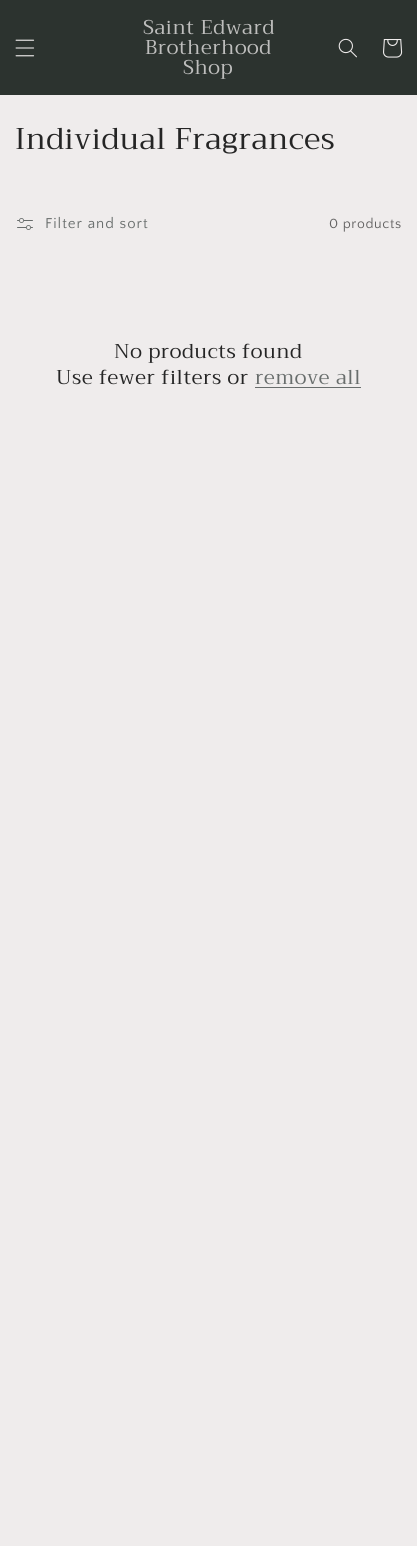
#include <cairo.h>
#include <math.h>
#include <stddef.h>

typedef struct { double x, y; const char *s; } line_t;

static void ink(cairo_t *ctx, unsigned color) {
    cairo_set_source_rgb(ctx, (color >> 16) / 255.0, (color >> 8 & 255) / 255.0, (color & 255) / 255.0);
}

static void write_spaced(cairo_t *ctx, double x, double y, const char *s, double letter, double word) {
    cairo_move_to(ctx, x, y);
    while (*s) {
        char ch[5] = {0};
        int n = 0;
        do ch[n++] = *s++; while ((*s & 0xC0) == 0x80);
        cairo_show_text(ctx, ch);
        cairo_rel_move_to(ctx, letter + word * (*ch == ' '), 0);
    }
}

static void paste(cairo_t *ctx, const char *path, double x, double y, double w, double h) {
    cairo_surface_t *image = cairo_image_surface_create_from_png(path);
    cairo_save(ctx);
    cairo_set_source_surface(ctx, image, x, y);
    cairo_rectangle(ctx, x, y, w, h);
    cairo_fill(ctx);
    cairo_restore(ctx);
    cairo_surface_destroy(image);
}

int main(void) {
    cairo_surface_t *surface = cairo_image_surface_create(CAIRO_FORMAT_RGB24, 417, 1546);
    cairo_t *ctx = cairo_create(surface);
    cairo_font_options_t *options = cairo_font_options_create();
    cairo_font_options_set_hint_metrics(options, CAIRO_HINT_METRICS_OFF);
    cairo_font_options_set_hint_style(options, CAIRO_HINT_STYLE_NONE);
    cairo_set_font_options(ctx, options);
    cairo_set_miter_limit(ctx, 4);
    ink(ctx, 0xEFECEC);
    cairo_paint(ctx);
    ink(ctx, 0x2C332F);
    cairo_rectangle(ctx, 0, 0, 417, 95);
    cairo_fill(ctx);
    paste(ctx, "media/1.png", 15, 39, 20, 18);
    cairo_select_font_face(ctx, "Trirong", CAIRO_FONT_SLANT_NORMAL, CAIRO_FONT_WEIGHT_NORMAL);
    cairo_set_font_size(ctx, 20);
    ink(ctx, 0xBEBEBD);
    {
        static const line_t items[] = {
            {143, 34, "Saint Edward"},
            {145, 54, "Brotherhood"},
            {183, 74, "Shop"},
        };
        for (size_t i = 0; i < sizeof items / sizeof *items; i++) {
            write_spaced(ctx, items[i].x, items[i].y, items[i].s, 0.6, 0);
        }
    }
    paste(ctx, "media/2.png", 338, 38, 19, 20);
    paste(ctx, "media/3.png", 383, 39, 20, 19);
    cairo_set_font_size(ctx, 30);
    ink(ctx, 0x252525);
    write_spaced(ctx, 15, 149, "Individual Fragrances", 0.6, 0);
    paste(ctx, "media/4.png", 17, 218, 16, 12);
    cairo_select_font_face(ctx, "Quattrocento Sans", CAIRO_FONT_SLANT_NORMAL, CAIRO_FONT_WEIGHT_NORMAL);
    cairo_set_font_size(ctx, 15);
    ink(ctx, 0x686D6C);
    write_spaced(ctx, 45, 228, "Filter and sort", 1, 0);
    cairo_set_font_size(ctx, 14);
    ink(ctx, 0x626161);
    write_spaced(ctx, 329, 228, "0 products", 0.6, 0);
    cairo_select_font_face(ctx, "Trirong", CAIRO_FONT_SLANT_NORMAL, CAIRO_FONT_WEIGHT_NORMAL);
    cairo_set_font_size(ctx, 20);
    ink(ctx, 0x252525);
    write_spaced(ctx, 114, 358, "No products found", 0.6, 0);
    write_spaced(ctx, 56, 384, "Use fewer filters or", 0.6, 0);
    ink(ctx, 0x686D6C);
    write_spaced(ctx, 255, 384, "remove all", 0.6, 0);
    cairo_rectangle(ctx, 255, 387, 106, 1);
    cairo_fill(ctx);
    cairo_surface_write_to_png(surface, "image.png");
    cairo_font_options_destroy(options);
    cairo_destroy(ctx);
    cairo_surface_destroy(surface);
    return 0;
}
